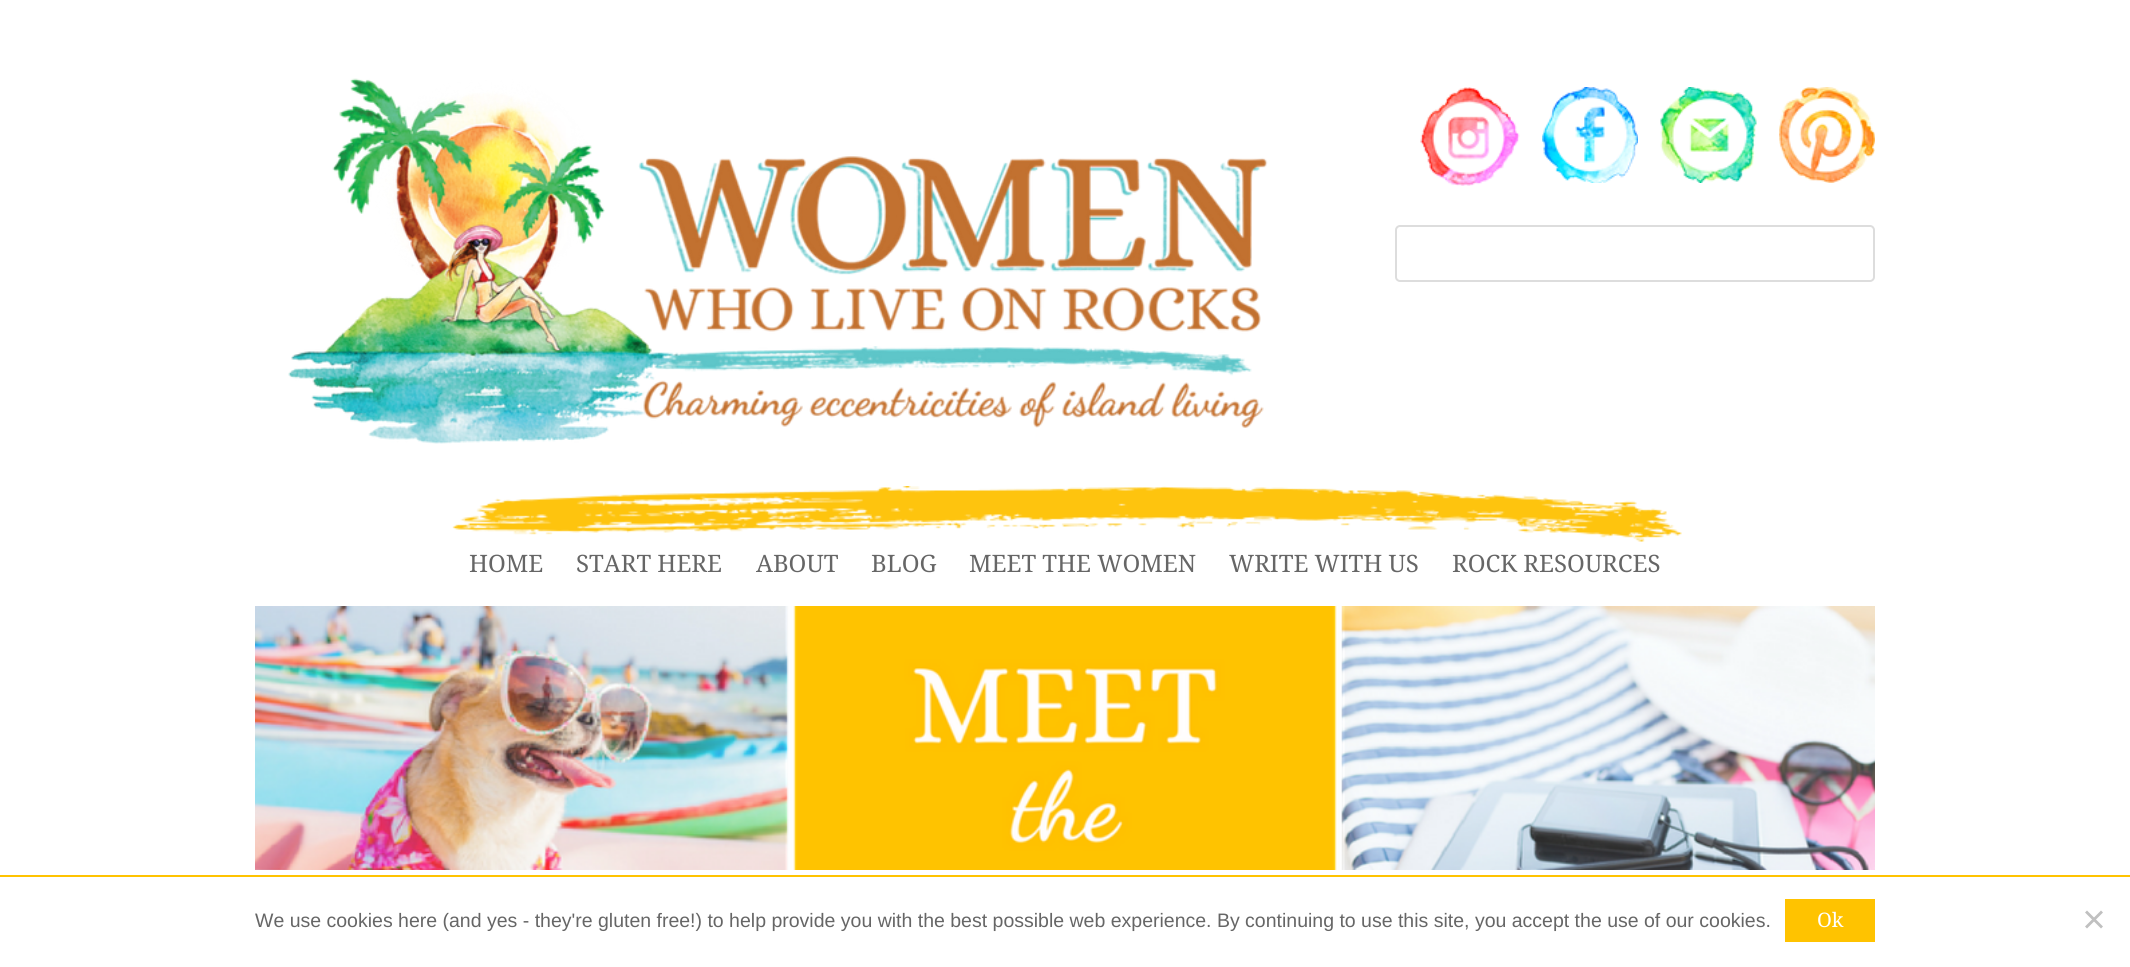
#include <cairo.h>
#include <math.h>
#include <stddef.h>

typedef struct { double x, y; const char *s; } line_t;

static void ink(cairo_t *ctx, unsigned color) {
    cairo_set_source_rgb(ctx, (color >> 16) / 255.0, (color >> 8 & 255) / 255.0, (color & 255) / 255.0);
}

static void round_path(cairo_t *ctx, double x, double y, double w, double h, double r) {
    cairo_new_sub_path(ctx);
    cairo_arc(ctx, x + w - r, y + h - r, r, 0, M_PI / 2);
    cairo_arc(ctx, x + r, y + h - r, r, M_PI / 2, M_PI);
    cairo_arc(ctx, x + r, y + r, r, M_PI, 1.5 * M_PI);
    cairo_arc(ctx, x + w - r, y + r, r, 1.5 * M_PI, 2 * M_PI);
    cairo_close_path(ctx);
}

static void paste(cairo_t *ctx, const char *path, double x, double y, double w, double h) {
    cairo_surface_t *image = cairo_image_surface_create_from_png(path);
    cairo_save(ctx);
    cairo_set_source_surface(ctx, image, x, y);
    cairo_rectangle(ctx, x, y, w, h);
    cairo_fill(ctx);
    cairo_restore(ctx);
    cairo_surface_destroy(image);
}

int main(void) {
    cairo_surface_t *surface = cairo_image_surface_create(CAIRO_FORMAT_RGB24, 2130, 967);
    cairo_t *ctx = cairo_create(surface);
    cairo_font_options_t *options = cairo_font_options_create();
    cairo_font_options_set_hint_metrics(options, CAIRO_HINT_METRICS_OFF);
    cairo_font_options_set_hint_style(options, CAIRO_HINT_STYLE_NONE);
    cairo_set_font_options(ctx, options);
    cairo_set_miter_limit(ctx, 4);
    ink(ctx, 0xFFFFFF);
    cairo_paint(ctx);
    paste(ctx, "media/1.png", 288, 78, 980, 366);
    paste(ctx, "media/2.png", 1420, 87, 100, 99);
    paste(ctx, "media/3.png", 1542, 87, 96, 96);
    paste(ctx, "media/4.png", 1660, 87, 97, 96);
    paste(ctx, "media/5.png", 1779, 87, 96, 96);
    round_path(ctx, 1396, 226, 478, 55, 4);
    ink(ctx, 0xDDDDDD);
    cairo_stroke(ctx);
    paste(ctx, "media/6.png", 452, 486, 1230, 56);
    cairo_select_font_face(ctx, "Droid Serif", CAIRO_FONT_SLANT_NORMAL, CAIRO_FONT_WEIGHT_NORMAL);
    cairo_set_font_size(ctx, 24);
    ink(ctx, 0x666666);
    {
        static const line_t items[] = {
            {469, 572, "HOME"},
            {576, 572, "START HERE"},
            {756, 572, "ABOUT"},
            {871, 572, "BLOG"},
            {969, 572, "MEET THE WOMEN"},
            {1229, 572, "WRITE WITH US"},
            {1452, 572, "ROCK RESOURCES"},
        };
        for (size_t i = 0; i < sizeof items / sizeof *items; i++) {
            cairo_move_to(ctx, items[i].x, items[i].y);
            cairo_show_text(ctx, items[i].s);
        }
    }
    paste(ctx, "media/7.png", 255, 606, 1620, 264);
    ink(ctx, 0xFFC300);
    cairo_rectangle(ctx, 0, 875, 2130, 2);
    cairo_fill(ctx);
    cairo_select_font_face(ctx, "Liberation Sans", CAIRO_FONT_SLANT_NORMAL, CAIRO_FONT_WEIGHT_NORMAL);
    cairo_set_font_size(ctx, 19.5);
    ink(ctx, 0x666666);
    cairo_move_to(ctx, 255, 927);
    cairo_show_text(ctx, "We use cookies here (and yes - they're gluten free!) to help provide you with the best possible web experience. By continuing to use this site, you accept the use of our cookies.");
    ink(ctx, 0xFFC300);
    cairo_rectangle(ctx, 1785, 899, 90, 43);
    cairo_fill(ctx);
    cairo_select_font_face(ctx, "Droid Serif", CAIRO_FONT_SLANT_NORMAL, CAIRO_FONT_WEIGHT_NORMAL);
    cairo_set_font_size(ctx, 20);
    ink(ctx, 0xFFFFFF);
    cairo_move_to(ctx, 1817, 927);
    cairo_show_text(ctx, "Ok");
    ink(ctx, 0xC0C0C0);
    cairo_new_path(ctx);
    cairo_move_to(ctx, 2101, 910.5);
    cairo_line_to(ctx, 2103, 912.5);
    cairo_line_to(ctx, 2087, 928.5);
    cairo_line_to(ctx, 2085, 926.5);
    cairo_close_path(ctx);
    cairo_fill(ctx);
    cairo_new_path(ctx);
    cairo_move_to(ctx, 2085, 912.5);
    cairo_line_to(ctx, 2087, 910.5);
    cairo_line_to(ctx, 2103, 926.5);
    cairo_line_to(ctx, 2101, 928.5);
    cairo_close_path(ctx);
    cairo_fill(ctx);
    cairo_surface_write_to_png(surface, "image.png");
    cairo_font_options_destroy(options);
    cairo_destroy(ctx);
    cairo_surface_destroy(surface);
    return 0;
}
